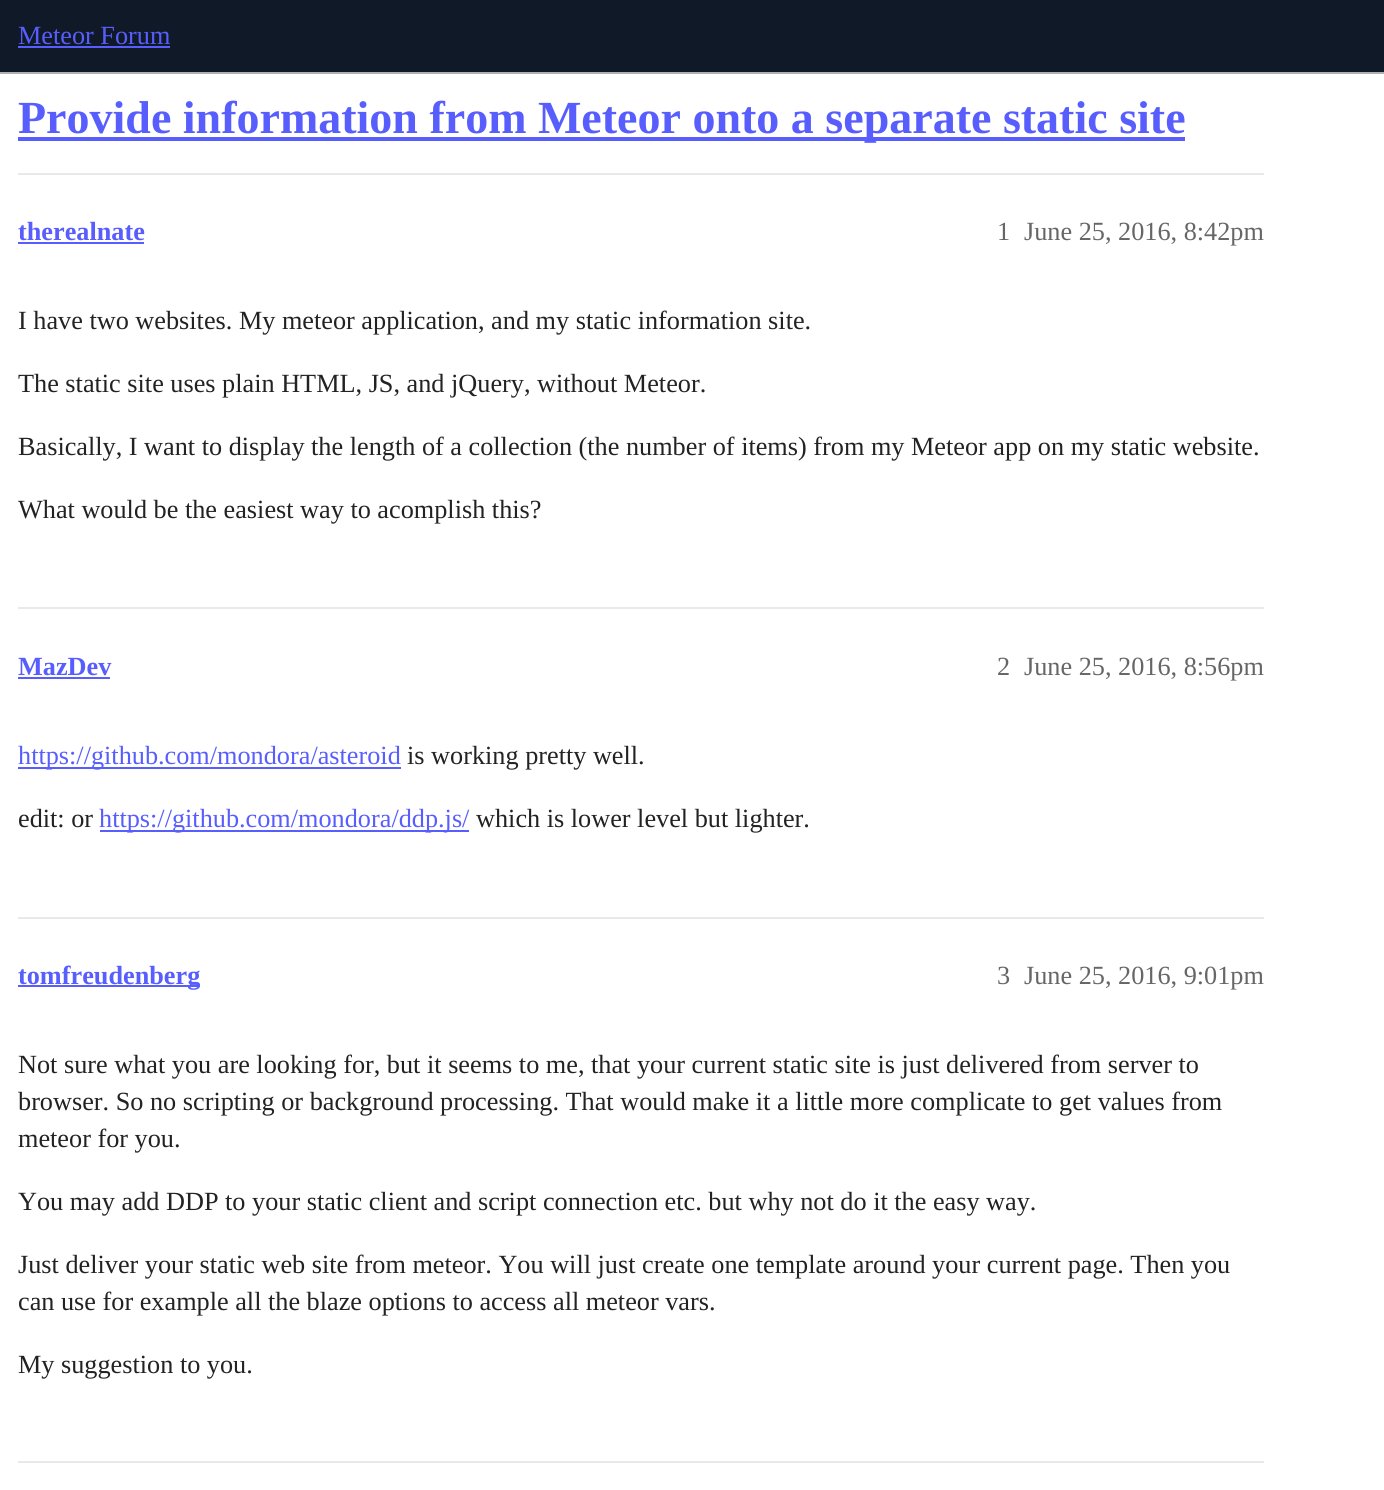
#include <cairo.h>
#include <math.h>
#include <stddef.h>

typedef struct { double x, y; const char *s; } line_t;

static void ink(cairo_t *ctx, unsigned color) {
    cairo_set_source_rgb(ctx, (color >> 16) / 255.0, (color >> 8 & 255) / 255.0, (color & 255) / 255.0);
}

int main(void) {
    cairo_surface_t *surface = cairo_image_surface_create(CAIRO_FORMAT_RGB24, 1384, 1490);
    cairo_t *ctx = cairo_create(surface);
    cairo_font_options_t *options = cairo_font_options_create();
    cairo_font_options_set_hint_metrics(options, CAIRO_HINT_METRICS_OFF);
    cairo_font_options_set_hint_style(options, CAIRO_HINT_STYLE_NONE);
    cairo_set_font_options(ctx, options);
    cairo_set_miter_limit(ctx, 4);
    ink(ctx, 0xFFFFFF);
    cairo_paint(ctx);
    ink(ctx, 0x101927);
    cairo_rectangle(ctx, 0, 0, 1384, 72);
    cairo_fill(ctx);
    ink(ctx, 0xB1B1B2);
    cairo_rectangle(ctx, 0, 72, 1384, 2);
    cairo_fill(ctx);
    cairo_select_font_face(ctx, "Liberation Serif", CAIRO_FONT_SLANT_NORMAL, CAIRO_FONT_WEIGHT_NORMAL);
    cairo_set_font_size(ctx, 26.25);
    ink(ctx, 0x585EFE);
    cairo_move_to(ctx, 18, 44);
    cairo_show_text(ctx, "Meteor Forum");
    cairo_rectangle(ctx, 18, 46, 152, 2);
    cairo_fill(ctx);
    cairo_rectangle(ctx, 18, 137, 1167, 4);
    cairo_fill(ctx);
    cairo_select_font_face(ctx, "Liberation Serif", CAIRO_FONT_SLANT_NORMAL, CAIRO_FONT_WEIGHT_BOLD);
    cairo_set_font_size(ctx, 46);
    cairo_move_to(ctx, 18, 133);
    cairo_show_text(ctx, "Provide information from Meteor onto a separate static site");
    ink(ctx, 0xE9E9E9);
    cairo_rectangle(ctx, 18, 173, 1246, 2);
    cairo_fill(ctx);
    cairo_set_font_size(ctx, 26.25);
    ink(ctx, 0x585EFE);
    cairo_move_to(ctx, 18, 240);
    cairo_show_text(ctx, "therealnate");
    cairo_rectangle(ctx, 18, 242, 126, 2);
    cairo_fill(ctx);
    cairo_select_font_face(ctx, "Liberation Serif", CAIRO_FONT_SLANT_NORMAL, CAIRO_FONT_WEIGHT_NORMAL);
    ink(ctx, 0x666666);
    cairo_move_to(ctx, 997, 240);
    cairo_show_text(ctx, "1");
    cairo_move_to(ctx, 1024, 240);
    cairo_show_text(ctx, "June 25, 2016, 8:42pm");
    ink(ctx, 0x222222);
    {
        static const line_t items[] = {
            {18, 329, "I have two websites. My meteor application, and my static information site."},
            {18, 392, "The static site uses plain HTML, JS, and jQuery, without Meteor."},
            {18, 455, "Basically, I want to display the length of a collection (the number of items) from my Meteor app on my static website."},
            {18, 518, "What would be the easiest way to acomplish this?"},
        };
        for (size_t i = 0; i < sizeof items / sizeof *items; i++) {
            cairo_move_to(ctx, items[i].x, items[i].y);
            cairo_show_text(ctx, items[i].s);
        }
    }
    ink(ctx, 0xE9E9E9);
    cairo_rectangle(ctx, 18, 607, 1246, 2);
    cairo_fill(ctx);
    cairo_select_font_face(ctx, "Liberation Serif", CAIRO_FONT_SLANT_NORMAL, CAIRO_FONT_WEIGHT_BOLD);
    ink(ctx, 0x585EFE);
    cairo_move_to(ctx, 18, 675);
    cairo_show_text(ctx, "MazDev");
    cairo_rectangle(ctx, 18, 677, 92, 2);
    cairo_fill(ctx);
    cairo_select_font_face(ctx, "Liberation Serif", CAIRO_FONT_SLANT_NORMAL, CAIRO_FONT_WEIGHT_NORMAL);
    ink(ctx, 0x666666);
    cairo_move_to(ctx, 997, 675);
    cairo_show_text(ctx, "2");
    cairo_move_to(ctx, 1024, 675);
    cairo_show_text(ctx, "June 25, 2016, 8:56pm");
    ink(ctx, 0x585EFE);
    cairo_rectangle(ctx, 18, 767, 383, 2);
    cairo_fill(ctx);
    cairo_move_to(ctx, 18, 764);
    cairo_show_text(ctx, "https://github.com/mondora/asteroid");
    ink(ctx, 0x222222);
    cairo_move_to(ctx, 407, 764);
    cairo_show_text(ctx, "is working pretty well.");
    cairo_move_to(ctx, 18, 827);
    cairo_show_text(ctx, "edit: or");
    ink(ctx, 0x585EFE);
    cairo_rectangle(ctx, 100, 830, 369, 2);
    cairo_fill(ctx);
    cairo_move_to(ctx, 99, 827);
    cairo_show_text(ctx, "https://github.com/mondora/ddp.js/");
    ink(ctx, 0x222222);
    cairo_move_to(ctx, 476, 827);
    cairo_show_text(ctx, "which is lower level but lighter.");
    ink(ctx, 0xE9E9E9);
    cairo_rectangle(ctx, 18, 917, 1246, 2);
    cairo_fill(ctx);
    ink(ctx, 0x585EFE);
    cairo_rectangle(ctx, 18, 985, 182, 2);
    cairo_fill(ctx);
    cairo_select_font_face(ctx, "Liberation Serif", CAIRO_FONT_SLANT_NORMAL, CAIRO_FONT_WEIGHT_BOLD);
    cairo_move_to(ctx, 18, 984);
    cairo_show_text(ctx, "tomfreudenberg");
    cairo_select_font_face(ctx, "Liberation Serif", CAIRO_FONT_SLANT_NORMAL, CAIRO_FONT_WEIGHT_NORMAL);
    ink(ctx, 0x666666);
    cairo_move_to(ctx, 997, 984);
    cairo_show_text(ctx, "3");
    cairo_move_to(ctx, 1024, 984);
    cairo_show_text(ctx, "June 25, 2016, 9:01pm");
    ink(ctx, 0x222222);
    {
        static const line_t items[] = {
            {18, 1073, "Not sure what you are looking for, but it seems to me, that your current static site is just delivered from server to"},
            {18, 1110, "browser. So no scripting or background processing. That would make it a little more complicate to get values from"},
            {18, 1147, "meteor for you."},
            {18, 1210, "You may add DDP to your static client and script connection etc. but why not do it the easy way."},
            {18, 1273, "Just deliver your static web site from meteor. You will just create one template around your current page. Then you"},
            {18, 1310, "can use for example all the blaze options to access all meteor vars."},
            {18, 1373, "My suggestion to you."},
        };
        for (size_t i = 0; i < sizeof items / sizeof *items; i++) {
            cairo_move_to(ctx, items[i].x, items[i].y);
            cairo_show_text(ctx, items[i].s);
        }
    }
    ink(ctx, 0xE9E9E9);
    cairo_rectangle(ctx, 18, 1461, 1246, 2);
    cairo_fill(ctx);
    cairo_surface_write_to_png(surface, "image.png");
    cairo_font_options_destroy(options);
    cairo_destroy(ctx);
    cairo_surface_destroy(surface);
    return 0;
}
